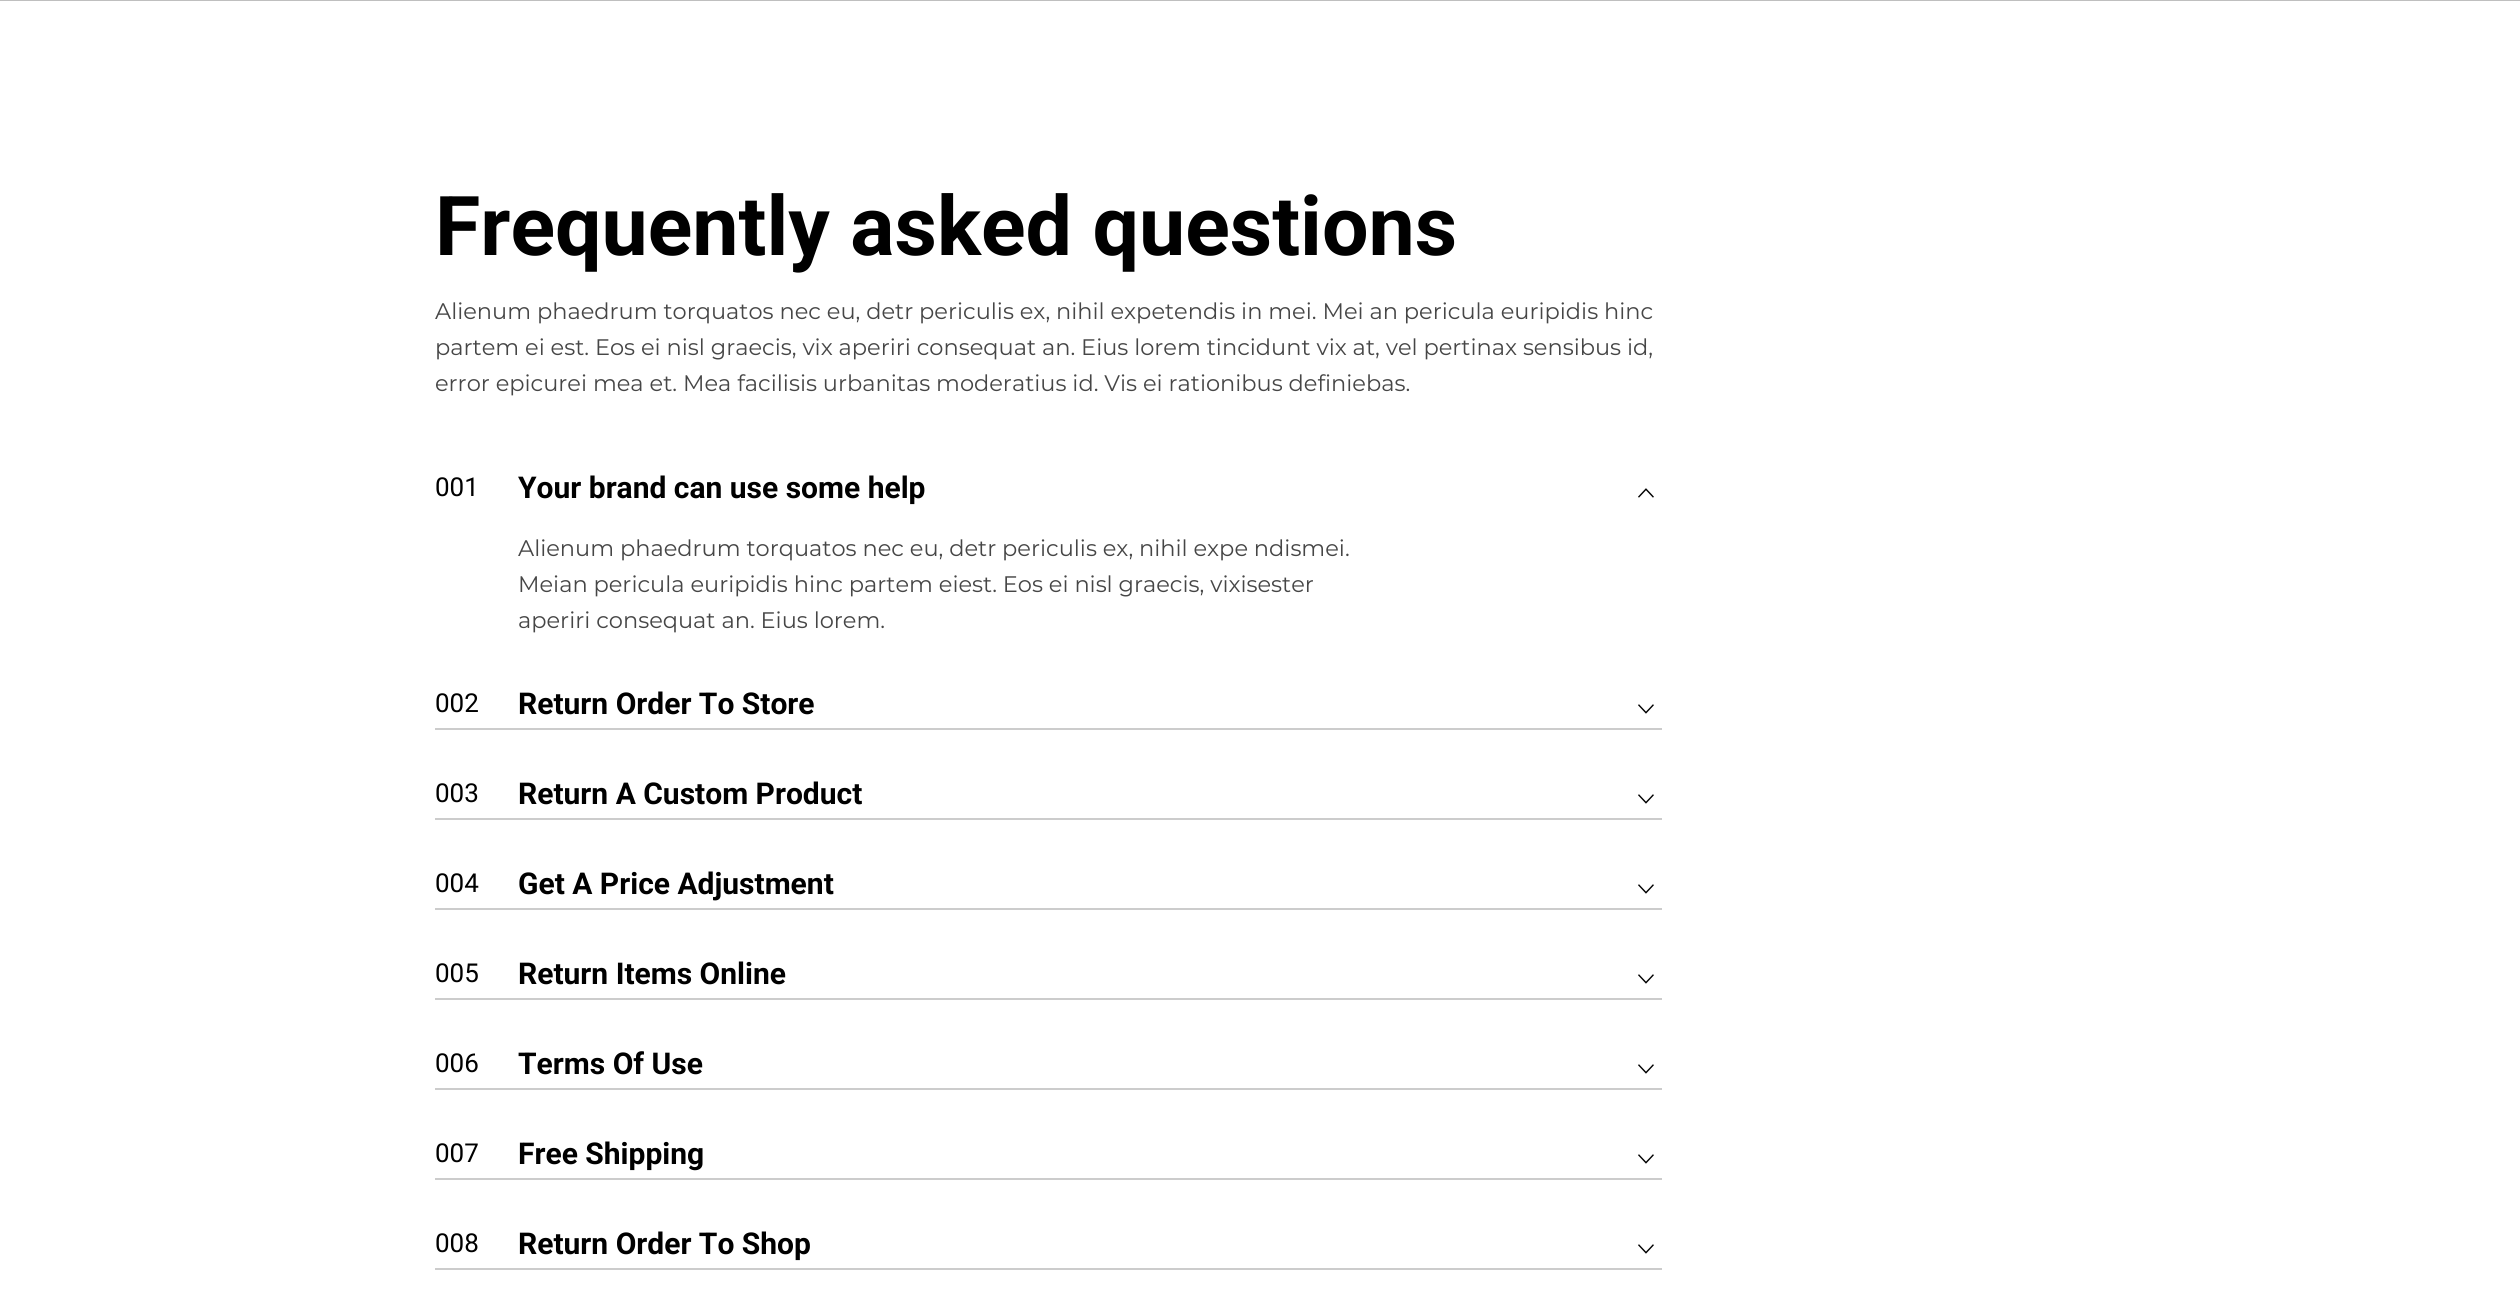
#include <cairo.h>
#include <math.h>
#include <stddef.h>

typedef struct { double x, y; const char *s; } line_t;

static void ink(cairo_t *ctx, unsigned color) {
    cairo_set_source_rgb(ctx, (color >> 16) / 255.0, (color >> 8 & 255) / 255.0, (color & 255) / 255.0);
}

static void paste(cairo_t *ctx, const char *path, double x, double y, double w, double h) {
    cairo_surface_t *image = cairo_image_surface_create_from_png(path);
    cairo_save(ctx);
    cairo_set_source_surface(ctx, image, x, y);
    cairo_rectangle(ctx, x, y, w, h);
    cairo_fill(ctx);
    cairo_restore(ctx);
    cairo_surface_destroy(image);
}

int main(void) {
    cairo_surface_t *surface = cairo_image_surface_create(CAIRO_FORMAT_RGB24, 2520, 1302);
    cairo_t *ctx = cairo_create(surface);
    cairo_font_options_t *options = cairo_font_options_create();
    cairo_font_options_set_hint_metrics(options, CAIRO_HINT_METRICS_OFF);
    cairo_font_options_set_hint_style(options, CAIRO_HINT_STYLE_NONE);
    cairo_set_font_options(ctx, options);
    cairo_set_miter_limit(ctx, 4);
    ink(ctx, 0xFFFFFF);
    cairo_paint(ctx);
    ink(ctx, 0xBFBFBF);
    cairo_rectangle(ctx, 0, 0, 2520, 1);
    cairo_fill(ctx);
    cairo_select_font_face(ctx, "Roboto", CAIRO_FONT_SLANT_NORMAL, CAIRO_FONT_WEIGHT_BOLD);
    cairo_set_font_size(ctx, 82.5);
    ink(ctx, 0x000000);
    cairo_move_to(ctx, 435, 255);
    cairo_show_text(ctx, "Frequently asked questions");
    cairo_select_font_face(ctx, "Montserrat", CAIRO_FONT_SLANT_NORMAL, CAIRO_FONT_WEIGHT_NORMAL);
    cairo_set_font_size(ctx, 22.5);
    ink(ctx, 0x464646);
    {
        static const line_t items[] = {
            {435, 319, "Alienum phaedrum torquatos nec eu, detr periculis ex, nihil expetendis in mei. Mei an pericula euripidis hinc"},
            {435, 355, "partem ei est. Eos ei nisl graecis, vix aperiri consequat an. Eius lorem tincidunt vix at, vel pertinax sensibus id,"},
            {435, 391, "error epicurei mea et. Mea facilisis urbanitas moderatius id. Vis ei rationibus definiebas."},
        };
        for (size_t i = 0; i < sizeof items / sizeof *items; i++) {
            cairo_move_to(ctx, items[i].x, items[i].y);
            cairo_show_text(ctx, items[i].s);
        }
    }
    cairo_select_font_face(ctx, "Roboto", CAIRO_FONT_SLANT_NORMAL, CAIRO_FONT_WEIGHT_NORMAL);
    cairo_set_font_size(ctx, 26);
    ink(ctx, 0x000000);
    cairo_move_to(ctx, 435, 496);
    cairo_show_text(ctx, "001");
    cairo_select_font_face(ctx, "Roboto", CAIRO_FONT_SLANT_NORMAL, CAIRO_FONT_WEIGHT_BOLD);
    cairo_set_font_size(ctx, 30);
    cairo_move_to(ctx, 518, 498);
    cairo_show_text(ctx, "Your brand can use some help");
    paste(ctx, "media/1.png", 1638, 488, 16, 10);
    cairo_select_font_face(ctx, "Montserrat", CAIRO_FONT_SLANT_NORMAL, CAIRO_FONT_WEIGHT_NORMAL);
    cairo_set_font_size(ctx, 22.5);
    ink(ctx, 0x464646);
    {
        static const line_t items[] = {
            {518, 556, "Alienum phaedrum torquatos nec eu, detr periculis ex, nihil expe ndismei."},
            {518, 592, "Meian pericula euripidis hinc partem eiest. Eos ei nisl graecis, vixisester"},
            {518, 628, "aperiri consequat an. Eius lorem."},
        };
        for (size_t i = 0; i < sizeof items / sizeof *items; i++) {
            cairo_move_to(ctx, items[i].x, items[i].y);
            cairo_show_text(ctx, items[i].s);
        }
    }
    ink(ctx, 0xCCCCCC);
    cairo_rectangle(ctx, 435, 728, 1227, 2);
    cairo_fill(ctx);
    cairo_select_font_face(ctx, "Roboto", CAIRO_FONT_SLANT_NORMAL, CAIRO_FONT_WEIGHT_NORMAL);
    cairo_set_font_size(ctx, 26);
    ink(ctx, 0x000000);
    cairo_move_to(ctx, 435, 712);
    cairo_show_text(ctx, "002");
    cairo_select_font_face(ctx, "Roboto", CAIRO_FONT_SLANT_NORMAL, CAIRO_FONT_WEIGHT_BOLD);
    cairo_set_font_size(ctx, 30);
    cairo_move_to(ctx, 518, 714);
    cairo_show_text(ctx, "Return Order To Store");
    paste(ctx, "media/2.png", 1638, 704, 16, 10);
    ink(ctx, 0xCCCCCC);
    cairo_rectangle(ctx, 435, 818, 1227, 2);
    cairo_fill(ctx);
    cairo_select_font_face(ctx, "Roboto", CAIRO_FONT_SLANT_NORMAL, CAIRO_FONT_WEIGHT_NORMAL);
    cairo_set_font_size(ctx, 26);
    ink(ctx, 0x000000);
    cairo_move_to(ctx, 435, 802);
    cairo_show_text(ctx, "003");
    cairo_select_font_face(ctx, "Roboto", CAIRO_FONT_SLANT_NORMAL, CAIRO_FONT_WEIGHT_BOLD);
    cairo_set_font_size(ctx, 30);
    cairo_move_to(ctx, 518, 804);
    cairo_show_text(ctx, "Return A Custom Product");
    paste(ctx, "media/2.png", 1638, 794, 16, 10);
    ink(ctx, 0xCCCCCC);
    cairo_rectangle(ctx, 435, 908, 1227, 2);
    cairo_fill(ctx);
    cairo_select_font_face(ctx, "Roboto", CAIRO_FONT_SLANT_NORMAL, CAIRO_FONT_WEIGHT_NORMAL);
    cairo_set_font_size(ctx, 26);
    ink(ctx, 0x000000);
    cairo_move_to(ctx, 435, 892);
    cairo_show_text(ctx, "004");
    cairo_select_font_face(ctx, "Roboto", CAIRO_FONT_SLANT_NORMAL, CAIRO_FONT_WEIGHT_BOLD);
    cairo_set_font_size(ctx, 30);
    cairo_move_to(ctx, 518, 894);
    cairo_show_text(ctx, "Get A Price Adjustment");
    paste(ctx, "media/2.png", 1638, 884, 16, 10);
    ink(ctx, 0xCCCCCC);
    cairo_rectangle(ctx, 435, 998, 1227, 2);
    cairo_fill(ctx);
    cairo_select_font_face(ctx, "Roboto", CAIRO_FONT_SLANT_NORMAL, CAIRO_FONT_WEIGHT_NORMAL);
    cairo_set_font_size(ctx, 26);
    ink(ctx, 0x000000);
    cairo_move_to(ctx, 435, 982);
    cairo_show_text(ctx, "005");
    cairo_select_font_face(ctx, "Roboto", CAIRO_FONT_SLANT_NORMAL, CAIRO_FONT_WEIGHT_BOLD);
    cairo_set_font_size(ctx, 30);
    cairo_move_to(ctx, 518, 984);
    cairo_show_text(ctx, "Return Items Online");
    paste(ctx, "media/2.png", 1638, 974, 16, 10);
    ink(ctx, 0xCCCCCC);
    cairo_rectangle(ctx, 435, 1088, 1227, 2);
    cairo_fill(ctx);
    cairo_select_font_face(ctx, "Roboto", CAIRO_FONT_SLANT_NORMAL, CAIRO_FONT_WEIGHT_NORMAL);
    cairo_set_font_size(ctx, 26);
    ink(ctx, 0x000000);
    cairo_move_to(ctx, 435, 1072);
    cairo_show_text(ctx, "006");
    cairo_select_font_face(ctx, "Roboto", CAIRO_FONT_SLANT_NORMAL, CAIRO_FONT_WEIGHT_BOLD);
    cairo_set_font_size(ctx, 30);
    cairo_move_to(ctx, 518, 1074);
    cairo_show_text(ctx, "Terms Of Use");
    paste(ctx, "media/2.png", 1638, 1064, 16, 10);
    ink(ctx, 0xCCCCCC);
    cairo_rectangle(ctx, 435, 1178, 1227, 2);
    cairo_fill(ctx);
    cairo_select_font_face(ctx, "Roboto", CAIRO_FONT_SLANT_NORMAL, CAIRO_FONT_WEIGHT_NORMAL);
    cairo_set_font_size(ctx, 26);
    ink(ctx, 0x000000);
    cairo_move_to(ctx, 435, 1162);
    cairo_show_text(ctx, "007");
    cairo_select_font_face(ctx, "Roboto", CAIRO_FONT_SLANT_NORMAL, CAIRO_FONT_WEIGHT_BOLD);
    cairo_set_font_size(ctx, 30);
    cairo_move_to(ctx, 518, 1164);
    cairo_show_text(ctx, "Free Shipping");
    paste(ctx, "media/2.png", 1638, 1154, 16, 10);
    ink(ctx, 0xCCCCCC);
    cairo_rectangle(ctx, 435, 1268, 1227, 2);
    cairo_fill(ctx);
    cairo_select_font_face(ctx, "Roboto", CAIRO_FONT_SLANT_NORMAL, CAIRO_FONT_WEIGHT_NORMAL);
    cairo_set_font_size(ctx, 26);
    ink(ctx, 0x000000);
    cairo_move_to(ctx, 435, 1252);
    cairo_show_text(ctx, "008");
    cairo_select_font_face(ctx, "Roboto", CAIRO_FONT_SLANT_NORMAL, CAIRO_FONT_WEIGHT_BOLD);
    cairo_set_font_size(ctx, 30);
    cairo_move_to(ctx, 518, 1254);
    cairo_show_text(ctx, "Return Order To Shop");
    paste(ctx, "media/2.png", 1638, 1244, 16, 10);
    cairo_surface_write_to_png(surface, "image.png");
    cairo_font_options_destroy(options);
    cairo_destroy(ctx);
    cairo_surface_destroy(surface);
    return 0;
}
